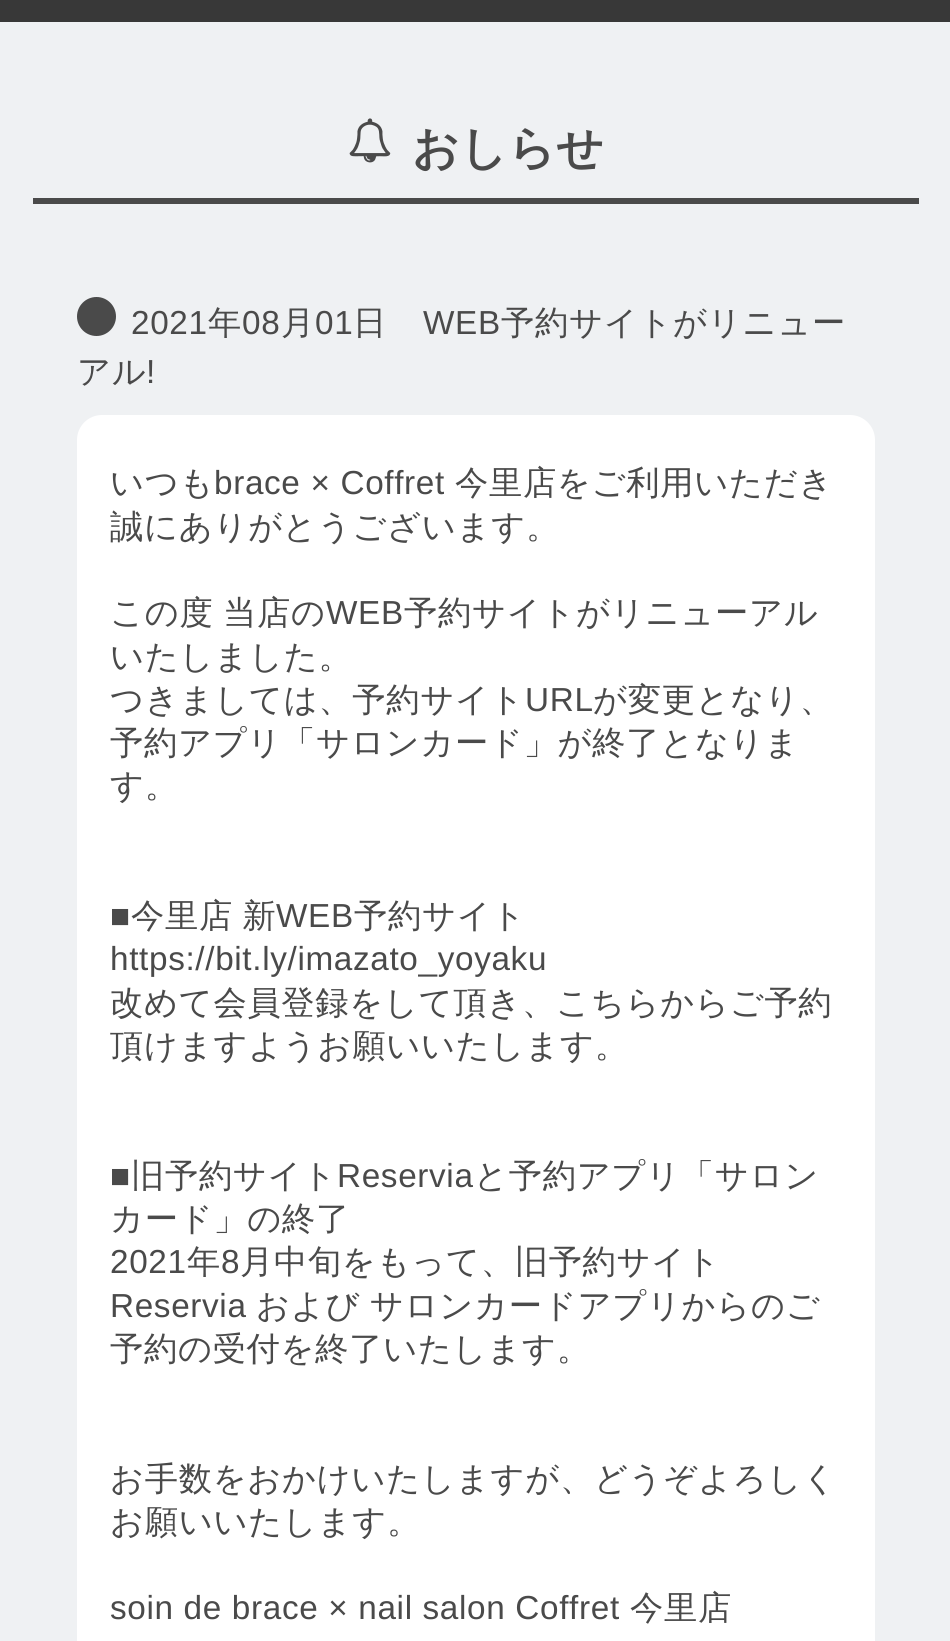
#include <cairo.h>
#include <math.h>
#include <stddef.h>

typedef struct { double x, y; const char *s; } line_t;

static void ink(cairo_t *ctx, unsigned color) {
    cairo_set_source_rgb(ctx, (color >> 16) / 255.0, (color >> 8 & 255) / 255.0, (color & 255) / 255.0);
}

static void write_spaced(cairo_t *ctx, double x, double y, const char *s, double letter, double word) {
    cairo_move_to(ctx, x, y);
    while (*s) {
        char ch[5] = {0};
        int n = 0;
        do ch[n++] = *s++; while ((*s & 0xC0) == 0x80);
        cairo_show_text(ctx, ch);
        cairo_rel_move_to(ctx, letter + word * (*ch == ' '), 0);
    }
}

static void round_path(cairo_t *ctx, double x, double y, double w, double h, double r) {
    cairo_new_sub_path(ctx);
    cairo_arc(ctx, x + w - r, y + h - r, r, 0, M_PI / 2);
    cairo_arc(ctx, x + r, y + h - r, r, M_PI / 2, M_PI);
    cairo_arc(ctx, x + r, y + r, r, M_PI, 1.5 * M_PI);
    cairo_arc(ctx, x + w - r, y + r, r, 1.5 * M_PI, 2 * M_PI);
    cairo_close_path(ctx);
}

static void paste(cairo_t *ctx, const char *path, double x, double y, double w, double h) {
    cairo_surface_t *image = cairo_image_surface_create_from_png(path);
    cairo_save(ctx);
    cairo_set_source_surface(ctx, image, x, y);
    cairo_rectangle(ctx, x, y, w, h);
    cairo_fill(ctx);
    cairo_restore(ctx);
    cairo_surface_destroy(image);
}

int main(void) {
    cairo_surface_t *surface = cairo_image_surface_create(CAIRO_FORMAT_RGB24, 950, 1641);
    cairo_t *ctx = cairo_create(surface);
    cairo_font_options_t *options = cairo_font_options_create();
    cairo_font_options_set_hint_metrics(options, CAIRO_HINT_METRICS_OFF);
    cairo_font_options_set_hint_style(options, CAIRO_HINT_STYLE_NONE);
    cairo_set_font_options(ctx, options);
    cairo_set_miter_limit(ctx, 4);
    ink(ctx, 0x383838);
    cairo_paint(ctx);
    ink(ctx, 0xEFF1F3);
    cairo_rectangle(ctx, 0, 22, 950, 1619);
    cairo_fill(ctx);
    ink(ctx, 0x4A4A4A);
    cairo_rectangle(ctx, 33, 198, 886, 6);
    cairo_fill(ctx);
    paste(ctx, "media/1.png", 349, 118, 42, 45);
    cairo_select_font_face(ctx, "WenQuanYi Zen Hei", CAIRO_FONT_SLANT_NORMAL, CAIRO_FONT_WEIGHT_BOLD);
    cairo_set_font_size(ctx, 46.5);
    write_spaced(ctx, 412, 164, "おしらせ", 0.5, 0);
    cairo_new_path(ctx);
    cairo_arc(ctx, 96.5, 316.5, 19.5, 0, 2 * M_PI);
    cairo_fill(ctx);
    cairo_select_font_face(ctx, "Liberation Sans", CAIRO_FONT_SLANT_NORMAL, CAIRO_FONT_WEIGHT_NORMAL);
    cairo_set_font_size(ctx, 33.3);
    write_spaced(ctx, 131, 334, "2021", 0.65, 0);
    cairo_select_font_face(ctx, "WenQuanYi Zen Hei Medium", CAIRO_FONT_SLANT_NORMAL, CAIRO_FONT_WEIGHT_NORMAL);
    write_spaced(ctx, 208, 334, "年", 0.65, 0);
    cairo_select_font_face(ctx, "Liberation Sans", CAIRO_FONT_SLANT_NORMAL, CAIRO_FONT_WEIGHT_NORMAL);
    write_spaced(ctx, 242, 334, "08", 0.65, 0);
    cairo_select_font_face(ctx, "WenQuanYi Zen Hei Medium", CAIRO_FONT_SLANT_NORMAL, CAIRO_FONT_WEIGHT_NORMAL);
    write_spaced(ctx, 281, 334, "月", 0.65, 0);
    cairo_select_font_face(ctx, "Liberation Sans", CAIRO_FONT_SLANT_NORMAL, CAIRO_FONT_WEIGHT_NORMAL);
    write_spaced(ctx, 315, 334, "01", 0.65, 0);
    cairo_select_font_face(ctx, "WenQuanYi Zen Hei Medium", CAIRO_FONT_SLANT_NORMAL, CAIRO_FONT_WEIGHT_NORMAL);
    write_spaced(ctx, 353, 334, "日", 0.65, 0);
    cairo_select_font_face(ctx, "Liberation Sans", CAIRO_FONT_SLANT_NORMAL, CAIRO_FONT_WEIGHT_NORMAL);
    write_spaced(ctx, 423, 334, "WEB", 0.65, 0);
    cairo_select_font_face(ctx, "WenQuanYi Zen Hei Medium", CAIRO_FONT_SLANT_NORMAL, CAIRO_FONT_WEIGHT_NORMAL);
    write_spaced(ctx, 501, 334, "予約サイトがリニュー", 0.65, 0);
    write_spaced(ctx, 77, 383, "アル", 0.65, 0);
    cairo_select_font_face(ctx, "Liberation Sans", CAIRO_FONT_SLANT_NORMAL, CAIRO_FONT_WEIGHT_NORMAL);
    write_spaced(ctx, 146, 383, "!", 0.65, 0);
    ink(ctx, 0xFFFFFF);
    round_path(ctx, 77, 415, 798, 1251, 25);
    cairo_fill(ctx);
    cairo_select_font_face(ctx, "WenQuanYi Zen Hei Medium", CAIRO_FONT_SLANT_NORMAL, CAIRO_FONT_WEIGHT_NORMAL);
    ink(ctx, 0x4A4A4A);
    write_spaced(ctx, 110, 494, "いつも", 0.65, 0);
    cairo_select_font_face(ctx, "Liberation Sans", CAIRO_FONT_SLANT_NORMAL, CAIRO_FONT_WEIGHT_NORMAL);
    write_spaced(ctx, 214, 494, "brace × Coffret", 0.65, 0);
    cairo_select_font_face(ctx, "WenQuanYi Zen Hei Medium", CAIRO_FONT_SLANT_NORMAL, CAIRO_FONT_WEIGHT_NORMAL);
    write_spaced(ctx, 455, 494, "今里店をご利用いただき", 0.65, 0);
    write_spaced(ctx, 110, 538, "誠にありがとうございます。", 0.65, 0);
    write_spaced(ctx, 110, 624, "この度 当店の", 0.65, -1);
    cairo_select_font_face(ctx, "Liberation Sans", CAIRO_FONT_SLANT_NORMAL, CAIRO_FONT_WEIGHT_NORMAL);
    write_spaced(ctx, 326, 624, "WEB", 0.65, 0);
    cairo_select_font_face(ctx, "WenQuanYi Zen Hei Medium", CAIRO_FONT_SLANT_NORMAL, CAIRO_FONT_WEIGHT_NORMAL);
    {
        static const line_t items[] = {
            {404, 624, "予約サイトがリニューアル"},
            {110, 668, "いたしました。"},
            {110, 711, "つきましては、予約サイト"},
        };
        for (size_t i = 0; i < sizeof items / sizeof *items; i++) {
            write_spaced(ctx, items[i].x, items[i].y, items[i].s, 0.65, 0);
        }
    }
    cairo_select_font_face(ctx, "Liberation Sans", CAIRO_FONT_SLANT_NORMAL, CAIRO_FONT_WEIGHT_NORMAL);
    write_spaced(ctx, 525, 711, "URL", 0.65, 0);
    cairo_select_font_face(ctx, "WenQuanYi Zen Hei Medium", CAIRO_FONT_SLANT_NORMAL, CAIRO_FONT_WEIGHT_NORMAL);
    {
        static const line_t items[] = {
            {593, 711, "が変更となり、"},
            {110, 754, "予約アプリ「サロンカード」が終了となりま"},
            {110, 797, "す。"},
        };
        for (size_t i = 0; i < sizeof items / sizeof *items; i++) {
            write_spaced(ctx, items[i].x, items[i].y, items[i].s, 0.65, 0);
        }
    }
    cairo_select_font_face(ctx, "Liberation Sans", CAIRO_FONT_SLANT_NORMAL, CAIRO_FONT_WEIGHT_NORMAL);
    write_spaced(ctx, 110, 927, "■", 0.65, 0);
    cairo_select_font_face(ctx, "WenQuanYi Zen Hei Medium", CAIRO_FONT_SLANT_NORMAL, CAIRO_FONT_WEIGHT_NORMAL);
    write_spaced(ctx, 131, 927, "今里店 新", 0.65, -1);
    cairo_select_font_face(ctx, "Liberation Sans", CAIRO_FONT_SLANT_NORMAL, CAIRO_FONT_WEIGHT_NORMAL);
    write_spaced(ctx, 276, 927, "WEB", 0.65, 0);
    cairo_select_font_face(ctx, "WenQuanYi Zen Hei Medium", CAIRO_FONT_SLANT_NORMAL, CAIRO_FONT_WEIGHT_NORMAL);
    write_spaced(ctx, 354, 927, "予約サイト", 0.65, 0);
    cairo_select_font_face(ctx, "Liberation Sans", CAIRO_FONT_SLANT_NORMAL, CAIRO_FONT_WEIGHT_NORMAL);
    write_spaced(ctx, 110, 970, "https://bit.ly/imazato_yoyaku", 0.65, 0);
    cairo_select_font_face(ctx, "WenQuanYi Zen Hei Medium", CAIRO_FONT_SLANT_NORMAL, CAIRO_FONT_WEIGHT_NORMAL);
    write_spaced(ctx, 110, 1014, "改めて会員登録をして頂き、こちらからご予約", 0.65, 0);
    write_spaced(ctx, 110, 1057, "頂けますようお願いいたします。", 0.65, 0);
    cairo_select_font_face(ctx, "Liberation Sans", CAIRO_FONT_SLANT_NORMAL, CAIRO_FONT_WEIGHT_NORMAL);
    write_spaced(ctx, 110, 1187, "■", 0.65, 0);
    cairo_select_font_face(ctx, "WenQuanYi Zen Hei Medium", CAIRO_FONT_SLANT_NORMAL, CAIRO_FONT_WEIGHT_NORMAL);
    write_spaced(ctx, 131, 1187, "旧予約サイト", 0.65, 0);
    cairo_select_font_face(ctx, "Liberation Sans", CAIRO_FONT_SLANT_NORMAL, CAIRO_FONT_WEIGHT_NORMAL);
    write_spaced(ctx, 337, 1187, "Reservia", 0.65, 0);
    cairo_select_font_face(ctx, "WenQuanYi Zen Hei Medium", CAIRO_FONT_SLANT_NORMAL, CAIRO_FONT_WEIGHT_NORMAL);
    write_spaced(ctx, 474, 1187, "と予約アプリ「サロン", 0.65, 0);
    write_spaced(ctx, 110, 1230, "カード」の終了", 0.65, 0);
    cairo_select_font_face(ctx, "Liberation Sans", CAIRO_FONT_SLANT_NORMAL, CAIRO_FONT_WEIGHT_NORMAL);
    write_spaced(ctx, 110, 1273, "2021", 0.65, 0);
    cairo_select_font_face(ctx, "WenQuanYi Zen Hei Medium", CAIRO_FONT_SLANT_NORMAL, CAIRO_FONT_WEIGHT_NORMAL);
    write_spaced(ctx, 187, 1273, "年", 0.65, 0);
    cairo_select_font_face(ctx, "Liberation Sans", CAIRO_FONT_SLANT_NORMAL, CAIRO_FONT_WEIGHT_NORMAL);
    write_spaced(ctx, 221, 1273, "8", 0.65, 0);
    cairo_select_font_face(ctx, "WenQuanYi Zen Hei Medium", CAIRO_FONT_SLANT_NORMAL, CAIRO_FONT_WEIGHT_NORMAL);
    write_spaced(ctx, 240, 1273, "月中旬をもって、旧予約サイト", 0.65, 0);
    cairo_select_font_face(ctx, "Liberation Sans", CAIRO_FONT_SLANT_NORMAL, CAIRO_FONT_WEIGHT_NORMAL);
    write_spaced(ctx, 110, 1317, "Reservia", 0.65, 0);
    cairo_select_font_face(ctx, "WenQuanYi Zen Hei Medium", CAIRO_FONT_SLANT_NORMAL, CAIRO_FONT_WEIGHT_NORMAL);
    write_spaced(ctx, 256, 1317, "および サロンカードアプリからのご", 0.65, -1);
    {
        static const line_t items[] = {
            {110, 1360, "予約の受付を終了いたします。"},
            {110, 1490, "お手数をおかけいたしますが、どうぞよろしく"},
            {110, 1533, "お願いいたします。"},
        };
        for (size_t i = 0; i < sizeof items / sizeof *items; i++) {
            write_spaced(ctx, items[i].x, items[i].y, items[i].s, 0.65, 0);
        }
    }
    cairo_select_font_face(ctx, "Liberation Sans", CAIRO_FONT_SLANT_NORMAL, CAIRO_FONT_WEIGHT_NORMAL);
    write_spaced(ctx, 110, 1619, "soin de brace × nail salon Coffret", 0.65, 0);
    cairo_select_font_face(ctx, "WenQuanYi Zen Hei Medium", CAIRO_FONT_SLANT_NORMAL, CAIRO_FONT_WEIGHT_NORMAL);
    write_spaced(ctx, 630, 1619, "今里店", 0.65, 0);
    cairo_surface_write_to_png(surface, "image.png");
    cairo_font_options_destroy(options);
    cairo_destroy(ctx);
    cairo_surface_destroy(surface);
    return 0;
}
